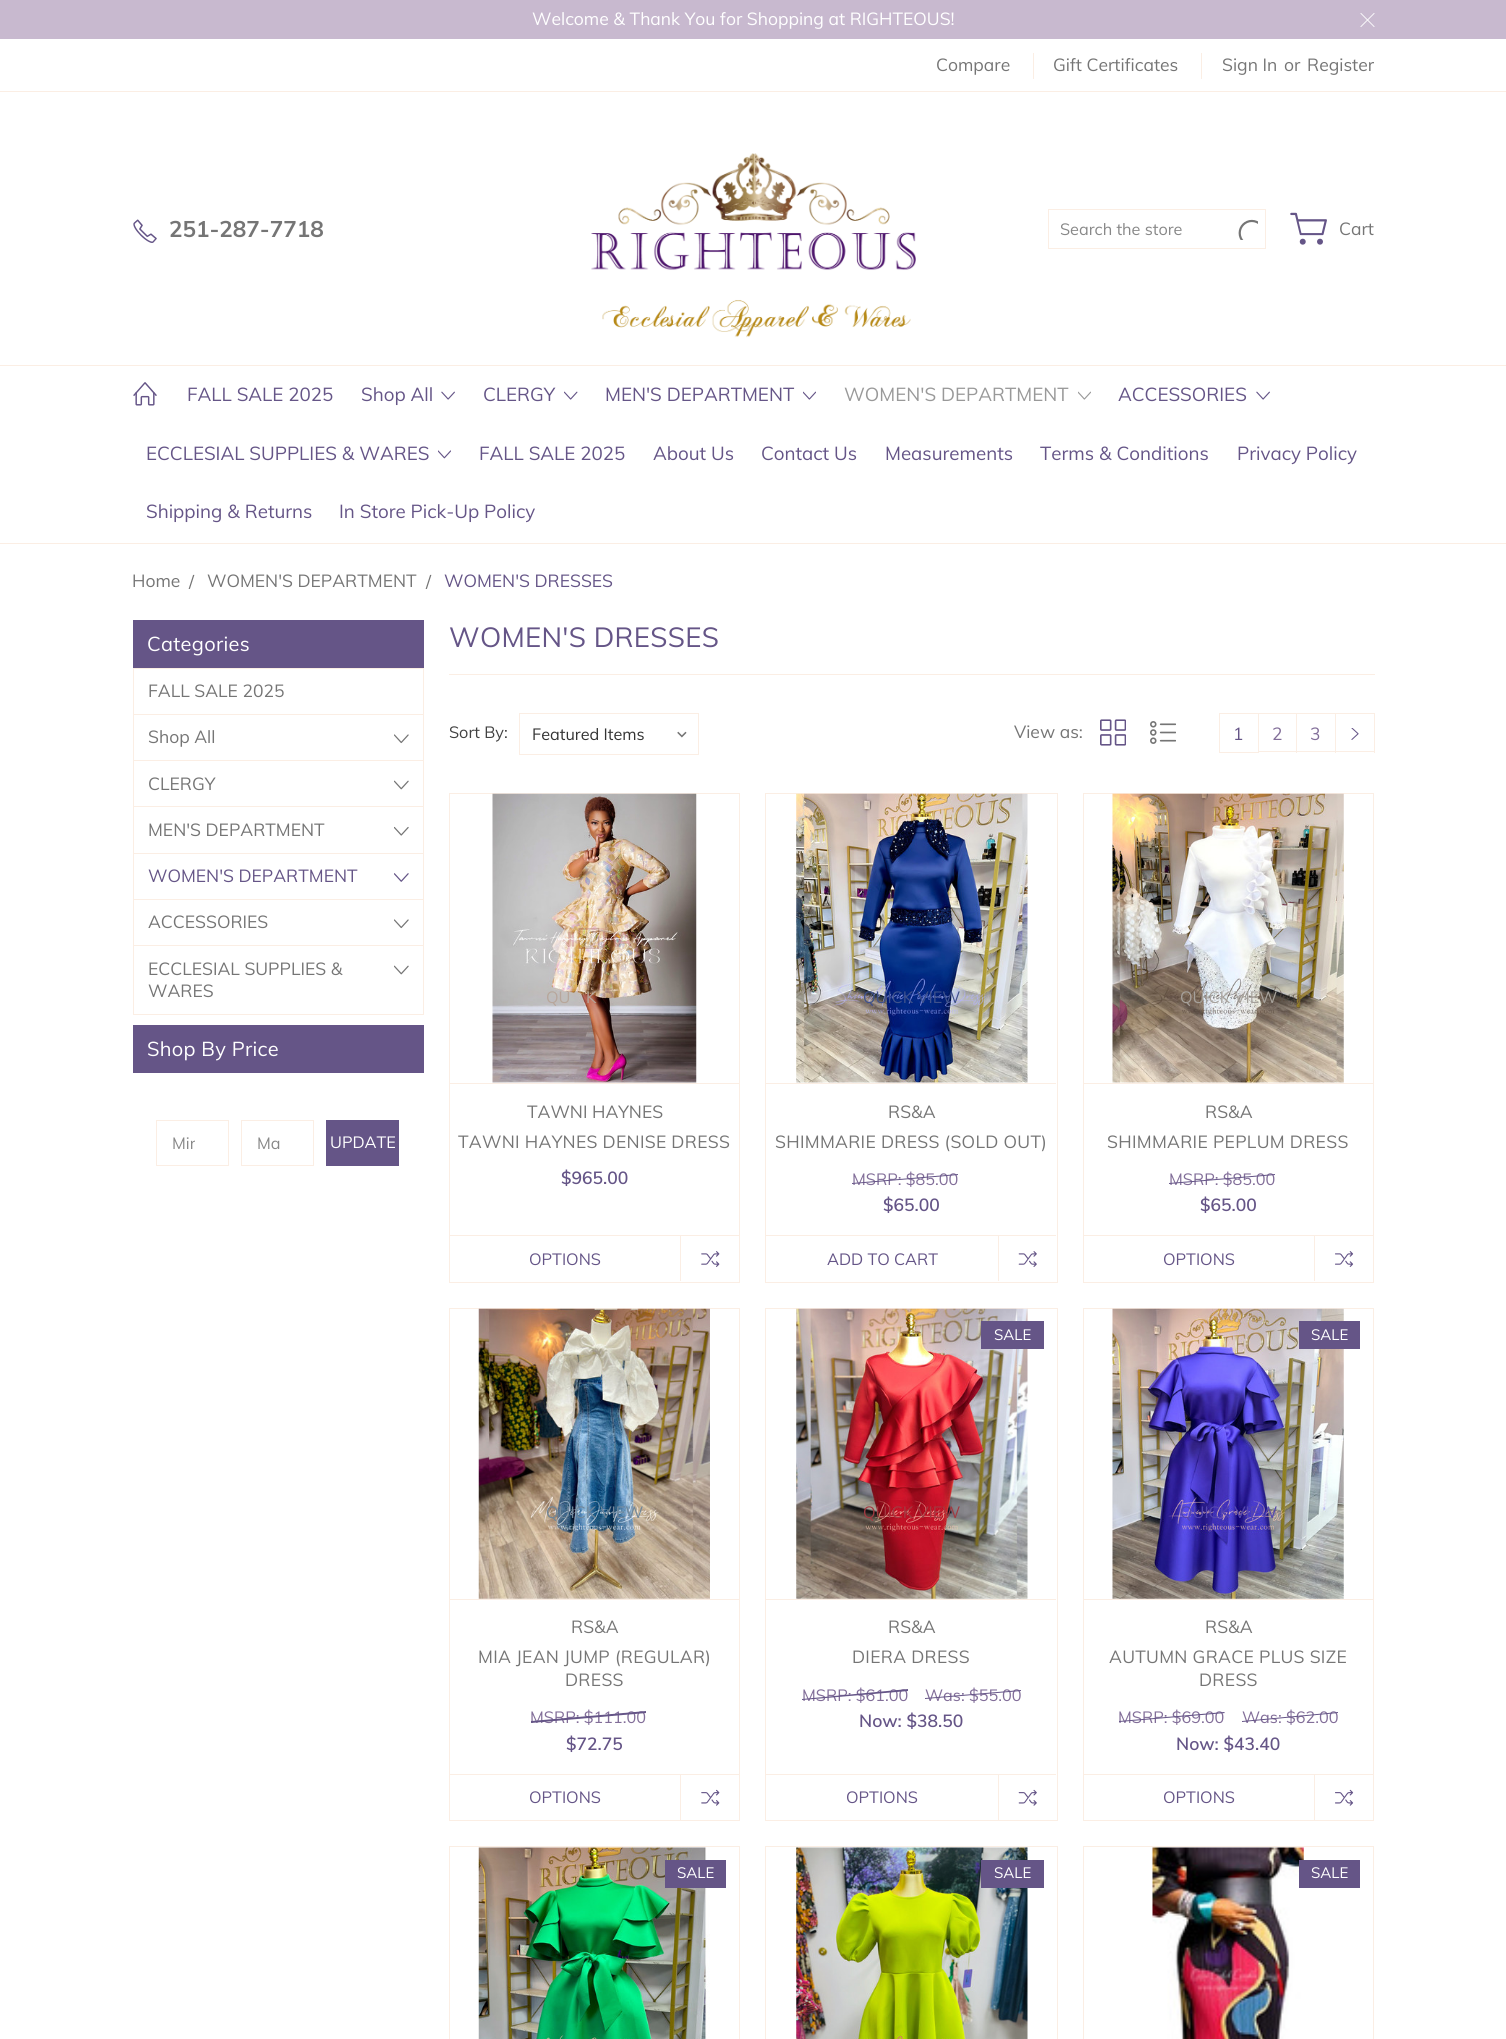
#include <cairo.h>
#include <math.h>
#include <stddef.h>

typedef struct { double x, y; const char *s; } line_t;
typedef struct { double x, y, w, h; unsigned color; } box_t;

static void ink(cairo_t *ctx, unsigned color) {
    cairo_set_source_rgb(ctx, (color >> 16) / 255.0, (color >> 8 & 255) / 255.0, (color & 255) / 255.0);
}

static void write_spaced(cairo_t *ctx, double x, double y, const char *s, double letter, double word) {
    cairo_move_to(ctx, x, y);
    while (*s) {
        char ch[5] = {0};
        int n = 0;
        do ch[n++] = *s++; while ((*s & 0xC0) == 0x80);
        cairo_show_text(ctx, ch);
        cairo_rel_move_to(ctx, letter + word * (*ch == ' '), 0);
    }
}

static void paste(cairo_t *ctx, const char *path, double x, double y, double w, double h) {
    cairo_surface_t *image = cairo_image_surface_create_from_png(path);
    cairo_save(ctx);
    cairo_set_source_surface(ctx, image, x, y);
    cairo_rectangle(ctx, x, y, w, h);
    cairo_fill(ctx);
    cairo_restore(ctx);
    cairo_surface_destroy(image);
}

int main(void) {
    cairo_surface_t *surface = cairo_image_surface_create(CAIRO_FORMAT_RGB24, 1506, 2039);
    cairo_t *ctx = cairo_create(surface);
    cairo_font_options_t *options = cairo_font_options_create();
    cairo_font_options_set_hint_metrics(options, CAIRO_HINT_METRICS_OFF);
    cairo_font_options_set_hint_style(options, CAIRO_HINT_STYLE_NONE);
    cairo_set_font_options(ctx, options);
    cairo_set_miter_limit(ctx, 4);
    ink(ctx, 0xFFFFFF);
    cairo_paint(ctx);
    ink(ctx, 0xC8B9CF);
    cairo_rectangle(ctx, 0, 0, 1506, 39);
    cairo_fill(ctx);
    cairo_select_font_face(ctx, "Muli", CAIRO_FONT_SLANT_NORMAL, CAIRO_FONT_WEIGHT_NORMAL);
    cairo_set_font_size(ctx, 17.5);
    ink(ctx, 0xFFFFFF);
    cairo_move_to(ctx, 532, 25);
    cairo_show_text(ctx, "Welcome & Thank You for Shopping at RIGHTEOUS!");
    paste(ctx, "media/1.png", 1360, 13, 15, 14);
    ink(ctx, 0xFBEEE4);
    cairo_rectangle(ctx, 0, 91, 1506, 1);
    cairo_fill(ctx);
    ink(ctx, 0x757575);
    cairo_move_to(ctx, 936, 71);
    cairo_show_text(ctx, "Compare");
    ink(ctx, 0xFBEEE4);
    cairo_rectangle(ctx, 1033, 53, 1, 26);
    cairo_fill(ctx);
    ink(ctx, 0x757575);
    cairo_move_to(ctx, 1053, 71);
    cairo_show_text(ctx, "Gift Certificates");
    ink(ctx, 0xFBEEE4);
    cairo_rectangle(ctx, 1201, 53, 1, 26);
    cairo_fill(ctx);
    ink(ctx, 0x757575);
    {
        static const line_t items[] = {
            {1222, 71, "Sign In"},
            {1284, 71, "or"},
            {1307, 71, "Register"},
        };
        for (size_t i = 0; i < sizeof items / sizeof *items; i++) {
            cairo_move_to(ctx, items[i].x, items[i].y);
            cairo_show_text(ctx, items[i].s);
        }
    }
    paste(ctx, "media/2.png", 133, 219, 24, 24);
    cairo_select_font_face(ctx, "Muli", CAIRO_FONT_SLANT_NORMAL, CAIRO_FONT_WEIGHT_BOLD);
    cairo_set_font_size(ctx, 22.5);
    cairo_move_to(ctx, 169, 237);
    cairo_show_text(ctx, "251-287-7718");
    paste(ctx, "media/3.png", 591, 153, 325, 185);
    cairo_rectangle(ctx, 1048.5, 209.5, 217, 39);
    ink(ctx, 0xFBEEE4);
    cairo_set_line_width(ctx, 1);
    cairo_stroke(ctx);
    cairo_select_font_face(ctx, "Muli", CAIRO_FONT_SLANT_NORMAL, CAIRO_FONT_WEIGHT_NORMAL);
    cairo_set_font_size(ctx, 16.25);
    ink(ctx, 0x888888);
    cairo_move_to(ctx, 1060, 235);
    cairo_show_text(ctx, "Search the store");
    paste(ctx, "media/4.png", 1238, 219, 20, 21);
    paste(ctx, "media/5.png", 1290, 212, 37, 33);
    cairo_set_font_size(ctx, 17.5);
    ink(ctx, 0x757575);
    cairo_move_to(ctx, 1339, 235);
    cairo_show_text(ctx, "Cart");
    ink(ctx, 0xFBEEE4);
    cairo_rectangle(ctx, 0, 365, 1506, 1);
    cairo_fill(ctx);
    cairo_rectangle(ctx, 0, 543, 1506, 1);
    cairo_fill(ctx);
    paste(ctx, "media/6.png", 133, 382, 24, 24);
    cairo_set_font_size(ctx, 18.75);
    ink(ctx, 0x655587);
    cairo_move_to(ctx, 187, 401);
    cairo_show_text(ctx, "FALL SALE 2025");
    cairo_move_to(ctx, 361, 401);
    cairo_show_text(ctx, "Shop All");
    paste(ctx, "media/7.png", 441, 391, 14, 9);
    cairo_move_to(ctx, 483, 401);
    cairo_show_text(ctx, "CLERGY");
    paste(ctx, "media/8.png", 564, 391, 14, 9);
    cairo_move_to(ctx, 605, 401);
    cairo_show_text(ctx, "MEN'S DEPARTMENT");
    paste(ctx, "media/9.png", 803, 391, 13, 9);
    ink(ctx, 0x999999);
    cairo_move_to(ctx, 844, 401);
    cairo_show_text(ctx, "WOMEN'S DEPARTMENT");
    paste(ctx, "media/10.png", 1078, 391, 13, 9);
    ink(ctx, 0x655587);
    cairo_move_to(ctx, 1118, 401);
    cairo_show_text(ctx, "ACCESSORIES");
    paste(ctx, "media/7.png", 1256, 391, 14, 9);
    cairo_move_to(ctx, 146, 460);
    cairo_show_text(ctx, "ECCLESIAL SUPPLIES & WARES");
    paste(ctx, "media/11.png", 438, 450, 13, 9);
    {
        static const line_t items[] = {
            {479, 460, "FALL SALE 2025"},
            {653, 460, "About Us"},
            {761, 460, "Contact Us"},
            {885, 460, "Measurements"},
            {1040, 460, "Terms & Conditions"},
            {1237, 460, "Privacy Policy"},
            {146, 518, "Shipping & Returns"},
            {339, 518, "In Store Pick-Up Policy"},
        };
        for (size_t i = 0; i < sizeof items / sizeof *items; i++) {
            cairo_move_to(ctx, items[i].x, items[i].y);
            cairo_show_text(ctx, items[i].s);
        }
    }
    cairo_set_font_size(ctx, 17.5);
    ink(ctx, 0x757575);
    {
        static const line_t items[] = {
            {132, 587, "Home"},
            {189, 588, "/"},
            {207, 587, "WOMEN'S DEPARTMENT"},
            {426, 588, "/"},
        };
        for (size_t i = 0; i < sizeof items / sizeof *items; i++) {
            cairo_move_to(ctx, items[i].x, items[i].y);
            cairo_show_text(ctx, items[i].s);
        }
    }
    ink(ctx, 0x655587);
    cairo_move_to(ctx, 444, 587);
    cairo_show_text(ctx, "WOMEN'S DRESSES");
    cairo_rectangle(ctx, 133, 620, 291, 48);
    cairo_fill(ctx);
    cairo_set_font_size(ctx, 20);
    ink(ctx, 0xFFFFFF);
    write_spaced(ctx, 147, 651, "Categories", 0.3, 0);
    cairo_rectangle(ctx, 133.5, 668.5, 290, 346);
    ink(ctx, 0xFBEEE4);
    cairo_stroke(ctx);
    cairo_set_font_size(ctx, 17.5);
    ink(ctx, 0x757575);
    cairo_move_to(ctx, 148, 697);
    cairo_show_text(ctx, "FALL SALE 2025");
    ink(ctx, 0xFBEEE4);
    cairo_rectangle(ctx, 134, 714, 289, 1);
    cairo_fill(ctx);
    ink(ctx, 0x757575);
    cairo_move_to(ctx, 148, 743);
    cairo_show_text(ctx, "Shop All");
    paste(ctx, "media/12.png", 394, 734, 15, 10);
    ink(ctx, 0xFBEEE4);
    cairo_rectangle(ctx, 134, 760, 289, 1);
    cairo_fill(ctx);
    ink(ctx, 0x757575);
    cairo_move_to(ctx, 148, 790);
    cairo_show_text(ctx, "CLERGY");
    paste(ctx, "media/13.png", 394, 780, 15, 10);
    ink(ctx, 0xFBEEE4);
    cairo_rectangle(ctx, 134, 806, 289, 1);
    cairo_fill(ctx);
    ink(ctx, 0x757575);
    cairo_move_to(ctx, 148, 836);
    cairo_show_text(ctx, "MEN'S DEPARTMENT");
    paste(ctx, "media/14.png", 394, 826, 15, 10);
    ink(ctx, 0xFBEEE4);
    cairo_rectangle(ctx, 134, 853, 289, 1);
    cairo_fill(ctx);
    ink(ctx, 0x655587);
    cairo_move_to(ctx, 148, 882);
    cairo_show_text(ctx, "WOMEN'S DEPARTMENT");
    paste(ctx, "media/15.png", 394, 873, 15, 9);
    ink(ctx, 0xFBEEE4);
    cairo_rectangle(ctx, 134, 899, 289, 1);
    cairo_fill(ctx);
    ink(ctx, 0x757575);
    cairo_move_to(ctx, 148, 928);
    cairo_show_text(ctx, "ACCESSORIES");
    paste(ctx, "media/12.png", 394, 919, 15, 10);
    ink(ctx, 0xFBEEE4);
    cairo_rectangle(ctx, 134, 945, 289, 1);
    cairo_fill(ctx);
    ink(ctx, 0x757575);
    cairo_move_to(ctx, 148, 975);
    cairo_show_text(ctx, "ECCLESIAL SUPPLIES &");
    cairo_move_to(ctx, 148, 997);
    cairo_show_text(ctx, "WARES");
    paste(ctx, "media/13.png", 394, 965, 15, 10);
    ink(ctx, 0x655587);
    cairo_rectangle(ctx, 133, 1025, 291, 48);
    cairo_fill(ctx);
    cairo_set_font_size(ctx, 20);
    ink(ctx, 0xFFFFFF);
    write_spaced(ctx, 147, 1056, "Shop By Price", 0.3, 0);
    cairo_rectangle(ctx, 156.5, 1120.5, 72, 45);
    ink(ctx, 0xFBEEE4);
    cairo_stroke(ctx);
    cairo_save(ctx);
    cairo_rectangle(ctx, 171, 1133, 24, 20);
    cairo_clip(ctx);
    cairo_set_font_size(ctx, 16.25);
    ink(ctx, 0x888888);
    cairo_move_to(ctx, 172, 1149);
    cairo_show_text(ctx, "Min");
    cairo_restore(ctx);
    cairo_rectangle(ctx, 241.5, 1120.5, 72, 45);
    cairo_stroke(ctx);
    cairo_set_font_size(ctx, 16.25);
    ink(ctx, 0x888888);
    cairo_move_to(ctx, 257, 1149);
    cairo_show_text(ctx, "Ma");
    ink(ctx, 0x655587);
    cairo_rectangle(ctx, 326, 1120, 73, 46);
    cairo_fill(ctx);
    ink(ctx, 0xFFFFFF);
    cairo_move_to(ctx, 330, 1148);
    cairo_show_text(ctx, "UPDATE");
    ink(ctx, 0xFBEEE4);
    cairo_rectangle(ctx, 449, 674, 926, 1);
    cairo_fill(ctx);
    cairo_set_font_size(ctx, 27.5);
    ink(ctx, 0x655587);
    write_spaced(ctx, 449, 647, "WOMEN'S DRESSES", 0.3, 0);
    cairo_set_font_size(ctx, 16.25);
    ink(ctx, 0x424242);
    cairo_move_to(ctx, 449, 738);
    cairo_show_text(ctx, "Sort By:");
    paste(ctx, "media/16.png", 677, 731, 10, 7);
    cairo_rectangle(ctx, 519.5, 713.5, 179, 41);
    ink(ctx, 0xFBEEE4);
    cairo_stroke(ctx);
    ink(ctx, 0x333333);
    cairo_move_to(ctx, 532, 740);
    cairo_show_text(ctx, "Featured Items");
    cairo_set_font_size(ctx, 17.5);
    ink(ctx, 0x757575);
    cairo_move_to(ctx, 1014, 738);
    cairo_show_text(ctx, "View as:");
    paste(ctx, "media/17.png", 1100, 719, 26, 27);
    paste(ctx, "media/18.png", 1150, 721, 26, 23);
    cairo_rectangle(ctx, 1219.5, 713.5, 39, 39);
    ink(ctx, 0xFBEEE4);
    cairo_stroke(ctx);
    ink(ctx, 0x655587);
    cairo_move_to(ctx, 1233, 740);
    cairo_show_text(ctx, "1");
    {
        static const box_t items[] = {
            {1259, 713, 116, 1, 0xFBEEE4},
            {1296, 713, 1, 40, 0xFBEEE4},
            {1259, 751, 39, 1, 0xFBEEE4},
        };
        for (size_t i = 0; i < sizeof items / sizeof *items; i++) {
            ink(ctx, items[i].color);
            cairo_rectangle(ctx, items[i].x, items[i].y, items[i].w, items[i].h);
            cairo_fill(ctx);
        }
    }
    ink(ctx, 0x826E99);
    cairo_move_to(ctx, 1272, 740);
    cairo_show_text(ctx, "2");
    ink(ctx, 0xFBEEE4);
    cairo_rectangle(ctx, 1335, 713, 1, 40);
    cairo_fill(ctx);
    cairo_rectangle(ctx, 1298, 751, 38, 1);
    cairo_fill(ctx);
    ink(ctx, 0x826E99);
    cairo_move_to(ctx, 1310, 740);
    cairo_show_text(ctx, "3");
    ink(ctx, 0xFBEEE4);
    cairo_rectangle(ctx, 1374, 713, 1, 40);
    cairo_fill(ctx);
    cairo_rectangle(ctx, 1336, 751, 39, 1);
    cairo_fill(ctx);
    paste(ctx, "media/19.png", 1351, 728, 8, 12);
    cairo_rectangle(ctx, 449.5, 793.5, 290, 489);
    cairo_stroke(ctx);
    paste(ctx, "media/20.png", 492, 793, 205, 290);
    cairo_set_font_size(ctx, 16.25);
    ink(ctx, 0xB7A69B);
    cairo_move_to(ctx, 546, 1003);
    cairo_show_text(ctx, "QU");
    cairo_move_to(ctx, 586, 1003);
    cairo_show_text(ctx, "K");
    ink(ctx, 0xFBEEE4);
    cairo_rectangle(ctx, 450, 1083, 289, 1);
    cairo_fill(ctx);
    cairo_set_font_size(ctx, 17.5);
    ink(ctx, 0x757575);
    cairo_move_to(ctx, 527, 1118);
    cairo_show_text(ctx, "TAWNI HAYNES");
    write_spaced(ctx, 458, 1148, "TAWNI HAYNES DENISE DRESS", 0.3, 0);
    cairo_select_font_face(ctx, "Muli SemiBold", CAIRO_FONT_SLANT_NORMAL, CAIRO_FONT_WEIGHT_NORMAL);
    ink(ctx, 0x655587);
    cairo_move_to(ctx, 561, 1184);
    cairo_show_text(ctx, "$965.00");
    ink(ctx, 0xFBEEE4);
    cairo_rectangle(ctx, 450, 1235, 289, 1);
    cairo_fill(ctx);
    cairo_rectangle(ctx, 680, 1236, 1, 45);
    cairo_fill(ctx);
    cairo_select_font_face(ctx, "Muli", CAIRO_FONT_SLANT_NORMAL, CAIRO_FONT_WEIGHT_NORMAL);
    cairo_set_font_size(ctx, 16.25);
    ink(ctx, 0x655587);
    cairo_move_to(ctx, 529, 1265);
    cairo_show_text(ctx, "OPTIONS");
    paste(ctx, "media/21.png", 701, 1251, 19, 16);
    cairo_rectangle(ctx, 765.5, 793.5, 292, 489);
    ink(ctx, 0xFBEEE4);
    cairo_stroke(ctx);
    paste(ctx, "media/22.png", 796, 793, 232, 290);
    ink(ctx, 0x3E518B);
    cairo_move_to(ctx, 863, 1003);
    cairo_show_text(ctx, "QUICK VIEW");
    ink(ctx, 0xFBEEE4);
    cairo_rectangle(ctx, 766, 1083, 290, 1);
    cairo_fill(ctx);
    cairo_set_font_size(ctx, 17.5);
    ink(ctx, 0x757575);
    cairo_move_to(ctx, 888, 1118);
    cairo_show_text(ctx, "RS&A");
    write_spaced(ctx, 775, 1148, "SHIMMARIE DRESS (SOLD OUT)", 0.3, 0);
    cairo_set_font_size(ctx, 16.25);
    ink(ctx, 0x826E99);
    cairo_move_to(ctx, 852, 1185);
    cairo_show_text(ctx, "MSRP: $85.00");
    ink(ctx, 0x655587);
    cairo_new_path(ctx);
    cairo_move_to(ctx, 958, 1175);
    cairo_line_to(ctx, 852, 1184);
    cairo_line_to(ctx, 852, 1183);
    cairo_line_to(ctx, 958, 1174);
    cairo_close_path(ctx);
    cairo_fill(ctx);
    cairo_select_font_face(ctx, "Muli SemiBold", CAIRO_FONT_SLANT_NORMAL, CAIRO_FONT_WEIGHT_NORMAL);
    cairo_set_font_size(ctx, 17.5);
    cairo_move_to(ctx, 883, 1211);
    cairo_show_text(ctx, "$65.00");
    ink(ctx, 0xFBEEE4);
    cairo_rectangle(ctx, 766, 1235, 290, 1);
    cairo_fill(ctx);
    cairo_rectangle(ctx, 998, 1236, 1, 45);
    cairo_fill(ctx);
    cairo_select_font_face(ctx, "Muli", CAIRO_FONT_SLANT_NORMAL, CAIRO_FONT_WEIGHT_NORMAL);
    cairo_set_font_size(ctx, 16.25);
    ink(ctx, 0x655587);
    cairo_move_to(ctx, 827, 1265);
    cairo_show_text(ctx, "ADD TO CART");
    paste(ctx, "media/23.png", 1018, 1251, 19, 16);
    cairo_rectangle(ctx, 1083.5, 793.5, 290, 489);
    ink(ctx, 0xFBEEE4);
    cairo_stroke(ctx);
    paste(ctx, "media/24.png", 1112, 793, 232, 290);
    ink(ctx, 0xA6A19B);
    cairo_move_to(ctx, 1180, 1003);
    cairo_show_text(ctx, "QUICK VIEW");
    ink(ctx, 0xFBEEE4);
    cairo_rectangle(ctx, 1084, 1083, 289, 1);
    cairo_fill(ctx);
    cairo_set_font_size(ctx, 17.5);
    ink(ctx, 0x757575);
    cairo_move_to(ctx, 1205, 1118);
    cairo_show_text(ctx, "RS&A");
    write_spaced(ctx, 1107, 1148, "SHIMMARIE PEPLUM DRESS", 0.3, 0);
    cairo_set_font_size(ctx, 16.25);
    ink(ctx, 0x826E99);
    cairo_move_to(ctx, 1169, 1185);
    cairo_show_text(ctx, "MSRP: $85.00");
    ink(ctx, 0x655587);
    cairo_new_path(ctx);
    cairo_move_to(ctx, 1275, 1175);
    cairo_line_to(ctx, 1169, 1184);
    cairo_line_to(ctx, 1169, 1183);
    cairo_line_to(ctx, 1275, 1174);
    cairo_close_path(ctx);
    cairo_fill(ctx);
    cairo_select_font_face(ctx, "Muli SemiBold", CAIRO_FONT_SLANT_NORMAL, CAIRO_FONT_WEIGHT_NORMAL);
    cairo_set_font_size(ctx, 17.5);
    cairo_move_to(ctx, 1200, 1211);
    cairo_show_text(ctx, "$65.00");
    ink(ctx, 0xFBEEE4);
    cairo_rectangle(ctx, 1084, 1235, 289, 1);
    cairo_fill(ctx);
    cairo_rectangle(ctx, 1314, 1236, 1, 45);
    cairo_fill(ctx);
    cairo_select_font_face(ctx, "Muli", CAIRO_FONT_SLANT_NORMAL, CAIRO_FONT_WEIGHT_NORMAL);
    cairo_set_font_size(ctx, 16.25);
    ink(ctx, 0x655587);
    cairo_move_to(ctx, 1163, 1265);
    cairo_show_text(ctx, "OPTIONS");
    paste(ctx, "media/25.png", 1335, 1251, 19, 16);
    cairo_rectangle(ctx, 449.5, 1308.5, 290, 512);
    ink(ctx, 0xFBEEE4);
    cairo_stroke(ctx);
    paste(ctx, "media/26.png", 478, 1308, 232, 291);
    ink(ctx, 0x70879A);
    cairo_move_to(ctx, 546, 1518);
    cairo_show_text(ctx, "QUICK VIEW");
    ink(ctx, 0xFBEEE4);
    cairo_rectangle(ctx, 450, 1599, 289, 1);
    cairo_fill(ctx);
    cairo_set_font_size(ctx, 17.5);
    ink(ctx, 0x757575);
    cairo_move_to(ctx, 571, 1633);
    cairo_show_text(ctx, "RS&A");
    write_spaced(ctx, 478, 1663, "MIA JEAN JUMP (REGULAR)", 0.3, 0);
    write_spaced(ctx, 565, 1686, "DRESS", 0.3, 0);
    cairo_set_font_size(ctx, 16.25);
    ink(ctx, 0x826E99);
    cairo_move_to(ctx, 530, 1723);
    cairo_show_text(ctx, "MSRP: $111.00");
    ink(ctx, 0x655587);
    cairo_new_path(ctx);
    cairo_move_to(ctx, 646, 1713);
    cairo_line_to(ctx, 531, 1723);
    cairo_line_to(ctx, 531, 1721);
    cairo_line_to(ctx, 646, 1711);
    cairo_close_path(ctx);
    cairo_fill(ctx);
    cairo_select_font_face(ctx, "Muli SemiBold", CAIRO_FONT_SLANT_NORMAL, CAIRO_FONT_WEIGHT_NORMAL);
    cairo_set_font_size(ctx, 17.5);
    cairo_move_to(ctx, 566, 1750);
    cairo_show_text(ctx, "$72.75");
    ink(ctx, 0xFBEEE4);
    cairo_rectangle(ctx, 450, 1774, 289, 1);
    cairo_fill(ctx);
    cairo_rectangle(ctx, 680, 1775, 1, 45);
    cairo_fill(ctx);
    cairo_select_font_face(ctx, "Muli", CAIRO_FONT_SLANT_NORMAL, CAIRO_FONT_WEIGHT_NORMAL);
    cairo_set_font_size(ctx, 16.25);
    ink(ctx, 0x655587);
    cairo_move_to(ctx, 529, 1803);
    cairo_show_text(ctx, "OPTIONS");
    paste(ctx, "media/27.png", 701, 1789, 19, 17);
    cairo_rectangle(ctx, 765.5, 1308.5, 292, 512);
    ink(ctx, 0xFBEEE4);
    cairo_stroke(ctx);
    paste(ctx, "media/28.png", 796, 1308, 232, 291);
    ink(ctx, 0x655587);
    cairo_rectangle(ctx, 981, 1321, 63, 28);
    cairo_fill(ctx);
    cairo_set_font_size(ctx, 15);
    ink(ctx, 0xFFFFFF);
    cairo_move_to(ctx, 994, 1340);
    cairo_show_text(ctx, "SALE");
    cairo_set_font_size(ctx, 16.25);
    ink(ctx, 0xA13A41);
    cairo_move_to(ctx, 863, 1518);
    cairo_show_text(ctx, "QUICK VIEW");
    ink(ctx, 0xFBEEE4);
    cairo_rectangle(ctx, 766, 1599, 290, 1);
    cairo_fill(ctx);
    cairo_set_font_size(ctx, 17.5);
    ink(ctx, 0x757575);
    cairo_move_to(ctx, 888, 1633);
    cairo_show_text(ctx, "RS&A");
    write_spaced(ctx, 852, 1663, "DIERA DRESS", 0.3, 0);
    cairo_set_font_size(ctx, 16.25);
    ink(ctx, 0x826E99);
    cairo_move_to(ctx, 802, 1701);
    cairo_show_text(ctx, "MSRP: $61.00");
    ink(ctx, 0x655587);
    cairo_new_path(ctx);
    cairo_move_to(ctx, 908, 1691);
    cairo_line_to(ctx, 802, 1700);
    cairo_line_to(ctx, 802, 1699);
    cairo_line_to(ctx, 908, 1689);
    cairo_close_path(ctx);
    cairo_fill(ctx);
    ink(ctx, 0x826E99);
    cairo_move_to(ctx, 925, 1701);
    cairo_show_text(ctx, "Was: $55.00");
    ink(ctx, 0x655587);
    cairo_new_path(ctx);
    cairo_move_to(ctx, 1021, 1691);
    cairo_line_to(ctx, 925, 1699);
    cairo_line_to(ctx, 925, 1698);
    cairo_line_to(ctx, 1021, 1690);
    cairo_close_path(ctx);
    cairo_fill(ctx);
    cairo_select_font_face(ctx, "Muli SemiBold", CAIRO_FONT_SLANT_NORMAL, CAIRO_FONT_WEIGHT_NORMAL);
    cairo_set_font_size(ctx, 17.5);
    cairo_move_to(ctx, 859, 1727);
    cairo_show_text(ctx, "Now: $38.50");
    ink(ctx, 0xFBEEE4);
    cairo_rectangle(ctx, 766, 1774, 290, 1);
    cairo_fill(ctx);
    cairo_rectangle(ctx, 998, 1775, 1, 45);
    cairo_fill(ctx);
    cairo_select_font_face(ctx, "Muli", CAIRO_FONT_SLANT_NORMAL, CAIRO_FONT_WEIGHT_NORMAL);
    cairo_set_font_size(ctx, 16.25);
    ink(ctx, 0x655587);
    cairo_move_to(ctx, 846, 1803);
    cairo_show_text(ctx, "OPTIONS");
    paste(ctx, "media/29.png", 1018, 1789, 19, 17);
    cairo_rectangle(ctx, 1083.5, 1308.5, 290, 512);
    ink(ctx, 0xFBEEE4);
    cairo_stroke(ctx);
    paste(ctx, "media/30.png", 1112, 1308, 232, 291);
    ink(ctx, 0x655587);
    cairo_rectangle(ctx, 1299, 1321, 61, 28);
    cairo_fill(ctx);
    cairo_set_font_size(ctx, 15);
    ink(ctx, 0xFFFFFF);
    cairo_move_to(ctx, 1311, 1340);
    cairo_show_text(ctx, "SALE");
    cairo_set_font_size(ctx, 16.25);
    ink(ctx, 0x5546AF);
    cairo_move_to(ctx, 1180, 1518);
    cairo_show_text(ctx, "QUICK VIEW");
    ink(ctx, 0xFBEEE4);
    cairo_rectangle(ctx, 1084, 1599, 289, 1);
    cairo_fill(ctx);
    cairo_set_font_size(ctx, 17.5);
    ink(ctx, 0x757575);
    cairo_move_to(ctx, 1205, 1633);
    cairo_show_text(ctx, "RS&A");
    write_spaced(ctx, 1109, 1663, "AUTUMN GRACE PLUS SIZE", 0.3, 0);
    write_spaced(ctx, 1199, 1686, "DRESS", 0.3, 0);
    cairo_set_font_size(ctx, 16.25);
    ink(ctx, 0x826E99);
    cairo_move_to(ctx, 1118, 1723);
    cairo_show_text(ctx, "MSRP: $69.00");
    ink(ctx, 0x655587);
    cairo_new_path(ctx);
    cairo_move_to(ctx, 1225, 1713);
    cairo_line_to(ctx, 1119, 1722);
    cairo_line_to(ctx, 1119, 1721);
    cairo_line_to(ctx, 1224, 1712);
    cairo_close_path(ctx);
    cairo_fill(ctx);
    ink(ctx, 0x826E99);
    cairo_move_to(ctx, 1242, 1723);
    cairo_show_text(ctx, "Was: $62.00");
    ink(ctx, 0x655587);
    cairo_new_path(ctx);
    cairo_move_to(ctx, 1338, 1713);
    cairo_line_to(ctx, 1242, 1722);
    cairo_line_to(ctx, 1242, 1721);
    cairo_line_to(ctx, 1338, 1712);
    cairo_close_path(ctx);
    cairo_fill(ctx);
    cairo_select_font_face(ctx, "Muli SemiBold", CAIRO_FONT_SLANT_NORMAL, CAIRO_FONT_WEIGHT_NORMAL);
    cairo_set_font_size(ctx, 17.5);
    cairo_move_to(ctx, 1176, 1750);
    cairo_show_text(ctx, "Now: $43.40");
    ink(ctx, 0xFBEEE4);
    cairo_rectangle(ctx, 1084, 1774, 289, 1);
    cairo_fill(ctx);
    cairo_rectangle(ctx, 1314, 1775, 1, 45);
    cairo_fill(ctx);
    cairo_select_font_face(ctx, "Muli", CAIRO_FONT_SLANT_NORMAL, CAIRO_FONT_WEIGHT_NORMAL);
    cairo_set_font_size(ctx, 16.25);
    ink(ctx, 0x655587);
    cairo_move_to(ctx, 1163, 1803);
    cairo_show_text(ctx, "OPTIONS");
    paste(ctx, "media/31.png", 1335, 1789, 19, 17);
    cairo_rectangle(ctx, 449.5, 1846.5, 290, 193);
    ink(ctx, 0xFBEEE4);
    cairo_stroke(ctx);
    paste(ctx, "media/32.png", 478, 1847, 232, 192);
    ink(ctx, 0x655587);
    cairo_rectangle(ctx, 665, 1860, 61, 28);
    cairo_fill(ctx);
    cairo_set_font_size(ctx, 15);
    ink(ctx, 0xFFFFFF);
    cairo_move_to(ctx, 677, 1878);
    cairo_show_text(ctx, "SALE");
    cairo_rectangle(ctx, 765.5, 1846.5, 292, 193);
    ink(ctx, 0xFBEEE4);
    cairo_stroke(ctx);
    paste(ctx, "media/33.png", 796, 1847, 232, 192);
    ink(ctx, 0x655587);
    cairo_rectangle(ctx, 981, 1860, 63, 28);
    cairo_fill(ctx);
    ink(ctx, 0xFFFFFF);
    cairo_move_to(ctx, 994, 1878);
    cairo_show_text(ctx, "SALE");
    cairo_rectangle(ctx, 1083.5, 1846.5, 290, 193);
    ink(ctx, 0xFBEEE4);
    cairo_stroke(ctx);
    paste(ctx, "media/34.png", 1152, 1847, 152, 192);
    ink(ctx, 0x655587);
    cairo_rectangle(ctx, 1299, 1860, 61, 28);
    cairo_fill(ctx);
    ink(ctx, 0xFFFFFF);
    cairo_move_to(ctx, 1311, 1878);
    cairo_show_text(ctx, "SALE");
    cairo_surface_write_to_png(surface, "image.png");
    cairo_font_options_destroy(options);
    cairo_destroy(ctx);
    cairo_surface_destroy(surface);
    return 0;
}
